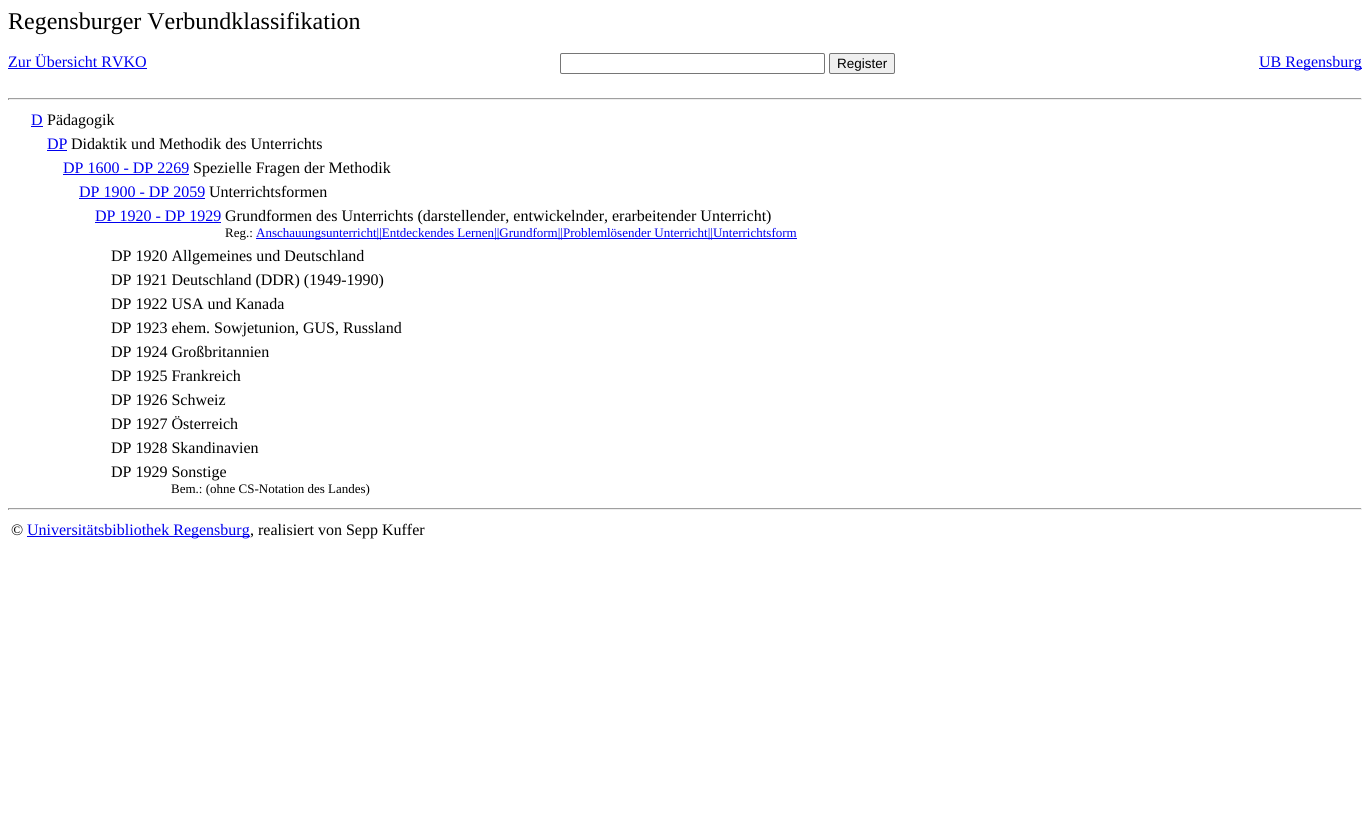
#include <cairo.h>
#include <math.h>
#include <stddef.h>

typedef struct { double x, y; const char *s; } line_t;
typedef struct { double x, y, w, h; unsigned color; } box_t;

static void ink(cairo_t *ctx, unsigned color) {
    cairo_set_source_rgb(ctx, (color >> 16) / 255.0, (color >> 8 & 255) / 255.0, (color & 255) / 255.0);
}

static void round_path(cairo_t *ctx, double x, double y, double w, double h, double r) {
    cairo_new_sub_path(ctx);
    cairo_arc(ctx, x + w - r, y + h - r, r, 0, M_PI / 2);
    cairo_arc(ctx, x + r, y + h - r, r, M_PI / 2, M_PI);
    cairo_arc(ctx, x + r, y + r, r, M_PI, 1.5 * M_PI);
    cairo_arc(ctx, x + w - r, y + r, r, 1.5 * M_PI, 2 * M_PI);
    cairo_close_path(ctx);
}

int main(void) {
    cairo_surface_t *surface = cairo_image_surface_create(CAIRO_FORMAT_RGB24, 1370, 819);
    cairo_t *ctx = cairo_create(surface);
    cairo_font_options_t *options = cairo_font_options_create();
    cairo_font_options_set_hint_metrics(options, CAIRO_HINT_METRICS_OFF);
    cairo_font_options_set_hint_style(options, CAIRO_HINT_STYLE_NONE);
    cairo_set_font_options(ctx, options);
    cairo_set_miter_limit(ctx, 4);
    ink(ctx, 0xFFFFFF);
    cairo_paint(ctx);
    cairo_select_font_face(ctx, "Liberation Serif", CAIRO_FONT_SLANT_NORMAL, CAIRO_FONT_WEIGHT_NORMAL);
    cairo_set_font_size(ctx, 24);
    ink(ctx, 0x000000);
    cairo_move_to(ctx, 8, 29);
    cairo_show_text(ctx, "Regensburger Verbundklassifikation");
    cairo_set_font_size(ctx, 16);
    ink(ctx, 0x0000EE);
    cairo_move_to(ctx, 8, 67);
    cairo_show_text(ctx, "Zur Übersicht RVKO");
    cairo_rectangle(ctx, 8, 68, 139, 1);
    cairo_fill(ctx);
    round_path(ctx, 560.5, 53.5, 264, 20, 1.5);
    ink(ctx, 0x767676);
    cairo_set_line_width(ctx, 1);
    cairo_stroke(ctx);
    ink(ctx, 0xEFEFEF);
    round_path(ctx, 829.5, 53.5, 65, 20, 1.5);
    cairo_fill_preserve(ctx);
    ink(ctx, 0x767676);
    cairo_stroke(ctx);
    cairo_select_font_face(ctx, "Liberation Sans", CAIRO_FONT_SLANT_NORMAL, CAIRO_FONT_WEIGHT_NORMAL);
    cairo_set_font_size(ctx, 13.5);
    ink(ctx, 0x000000);
    cairo_move_to(ctx, 837, 68);
    cairo_show_text(ctx, "Register");
    ink(ctx, 0x0000EE);
    cairo_rectangle(ctx, 1259, 68, 103, 1);
    cairo_fill(ctx);
    cairo_select_font_face(ctx, "Liberation Serif", CAIRO_FONT_SLANT_NORMAL, CAIRO_FONT_WEIGHT_NORMAL);
    cairo_set_font_size(ctx, 16);
    cairo_move_to(ctx, 1259, 67);
    cairo_show_text(ctx, "UB Regensburg");
    {
        static const box_t items[] = {
            {8, 98, 1354, 1, 0x9F9F9F},
            {1361, 98, 1, 2, 0xEEEEEE},
            {8, 99, 1354, 1, 0xEEEEEE},
            {8, 98, 1, 2, 0x9F9F9F},
        };
        for (size_t i = 0; i < sizeof items / sizeof *items; i++) {
            ink(ctx, items[i].color);
            cairo_rectangle(ctx, items[i].x, items[i].y, items[i].w, items[i].h);
            cairo_fill(ctx);
        }
    }
    ink(ctx, 0x0000EE);
    cairo_move_to(ctx, 31, 125);
    cairo_show_text(ctx, "D");
    cairo_rectangle(ctx, 31, 126, 12, 1);
    cairo_fill(ctx);
    ink(ctx, 0x000000);
    cairo_move_to(ctx, 47, 125);
    cairo_show_text(ctx, "Pädagogik");
    ink(ctx, 0x0000EE);
    cairo_move_to(ctx, 47, 149);
    cairo_show_text(ctx, "DP");
    cairo_rectangle(ctx, 47, 150, 20, 1);
    cairo_fill(ctx);
    ink(ctx, 0x000000);
    cairo_move_to(ctx, 71, 149);
    cairo_show_text(ctx, "Didaktik und Methodik des Unterrichts");
    ink(ctx, 0x0000EE);
    cairo_move_to(ctx, 63, 173);
    cairo_show_text(ctx, "DP 1600 - DP 2269");
    cairo_rectangle(ctx, 63, 174, 126, 1);
    cairo_fill(ctx);
    ink(ctx, 0x000000);
    cairo_move_to(ctx, 193, 173);
    cairo_show_text(ctx, "Spezielle Fragen der Methodik");
    ink(ctx, 0x0000EE);
    cairo_move_to(ctx, 79, 197);
    cairo_show_text(ctx, "DP 1900 - DP 2059");
    cairo_rectangle(ctx, 79, 198, 126, 1);
    cairo_fill(ctx);
    ink(ctx, 0x000000);
    cairo_move_to(ctx, 209, 197);
    cairo_show_text(ctx, "Unterrichtsformen");
    ink(ctx, 0x0000EE);
    cairo_move_to(ctx, 95, 221);
    cairo_show_text(ctx, "DP 1920 - DP 1929");
    cairo_rectangle(ctx, 95, 222, 126, 1);
    cairo_fill(ctx);
    ink(ctx, 0x000000);
    cairo_move_to(ctx, 225, 221);
    cairo_show_text(ctx, "Grundformen des Unterrichts (darstellender, entwickelnder, erarbeitender Unterricht)");
    cairo_set_font_size(ctx, 13);
    cairo_move_to(ctx, 225, 237);
    cairo_show_text(ctx, "Reg.:");
    ink(ctx, 0x0000EE);
    cairo_rectangle(ctx, 256, 238, 541, 1);
    cairo_fill(ctx);
    cairo_move_to(ctx, 256, 237);
    cairo_show_text(ctx, "Anschauungsunterricht||Entdeckendes Lernen||Grundform||Problemlösender Unterricht||Unterrichtsform");
    cairo_set_font_size(ctx, 16);
    ink(ctx, 0x000000);
    {
        static const line_t items[] = {
            {111, 261, "DP 1920 Allgemeines und Deutschland"},
            {111, 285, "DP 1921 Deutschland (DDR) (1949-1990)"},
            {111, 309, "DP 1922 USA und Kanada"},
            {111, 333, "DP 1923 ehem. Sowjetunion, GUS, Russland"},
            {111, 357, "DP 1924 Großbritannien"},
            {111, 381, "DP 1925 Frankreich"},
            {111, 405, "DP 1926 Schweiz"},
            {111, 429, "DP 1927 Österreich"},
            {111, 453, "DP 1928 Skandinavien"},
            {111, 477, "DP 1929 Sonstige"},
        };
        for (size_t i = 0; i < sizeof items / sizeof *items; i++) {
            cairo_move_to(ctx, items[i].x, items[i].y);
            cairo_show_text(ctx, items[i].s);
        }
    }
    cairo_set_font_size(ctx, 13);
    cairo_move_to(ctx, 171, 493);
    cairo_show_text(ctx, "Bem.: (ohne CS-Notation des Landes)");
    {
        static const box_t items[] = {
            {8, 508, 1354, 1, 0x9F9F9F},
            {1361, 508, 1, 2, 0xEEEEEE},
            {8, 509, 1354, 1, 0xEEEEEE},
            {8, 508, 1, 2, 0x9F9F9F},
        };
        for (size_t i = 0; i < sizeof items / sizeof *items; i++) {
            ink(ctx, items[i].color);
            cairo_rectangle(ctx, items[i].x, items[i].y, items[i].w, items[i].h);
            cairo_fill(ctx);
        }
    }
    cairo_set_font_size(ctx, 16);
    ink(ctx, 0x000000);
    cairo_move_to(ctx, 11, 535);
    cairo_show_text(ctx, "©");
    ink(ctx, 0x0000EE);
    cairo_rectangle(ctx, 27, 536, 223, 1);
    cairo_fill(ctx);
    cairo_move_to(ctx, 27, 535);
    cairo_show_text(ctx, "Universitätsbibliothek Regensburg");
    ink(ctx, 0x000000);
    cairo_move_to(ctx, 250, 535);
    cairo_show_text(ctx, ", realisiert von Sepp Kuffer");
    cairo_surface_write_to_png(surface, "image.png");
    cairo_font_options_destroy(options);
    cairo_destroy(ctx);
    cairo_surface_destroy(surface);
    return 0;
}
